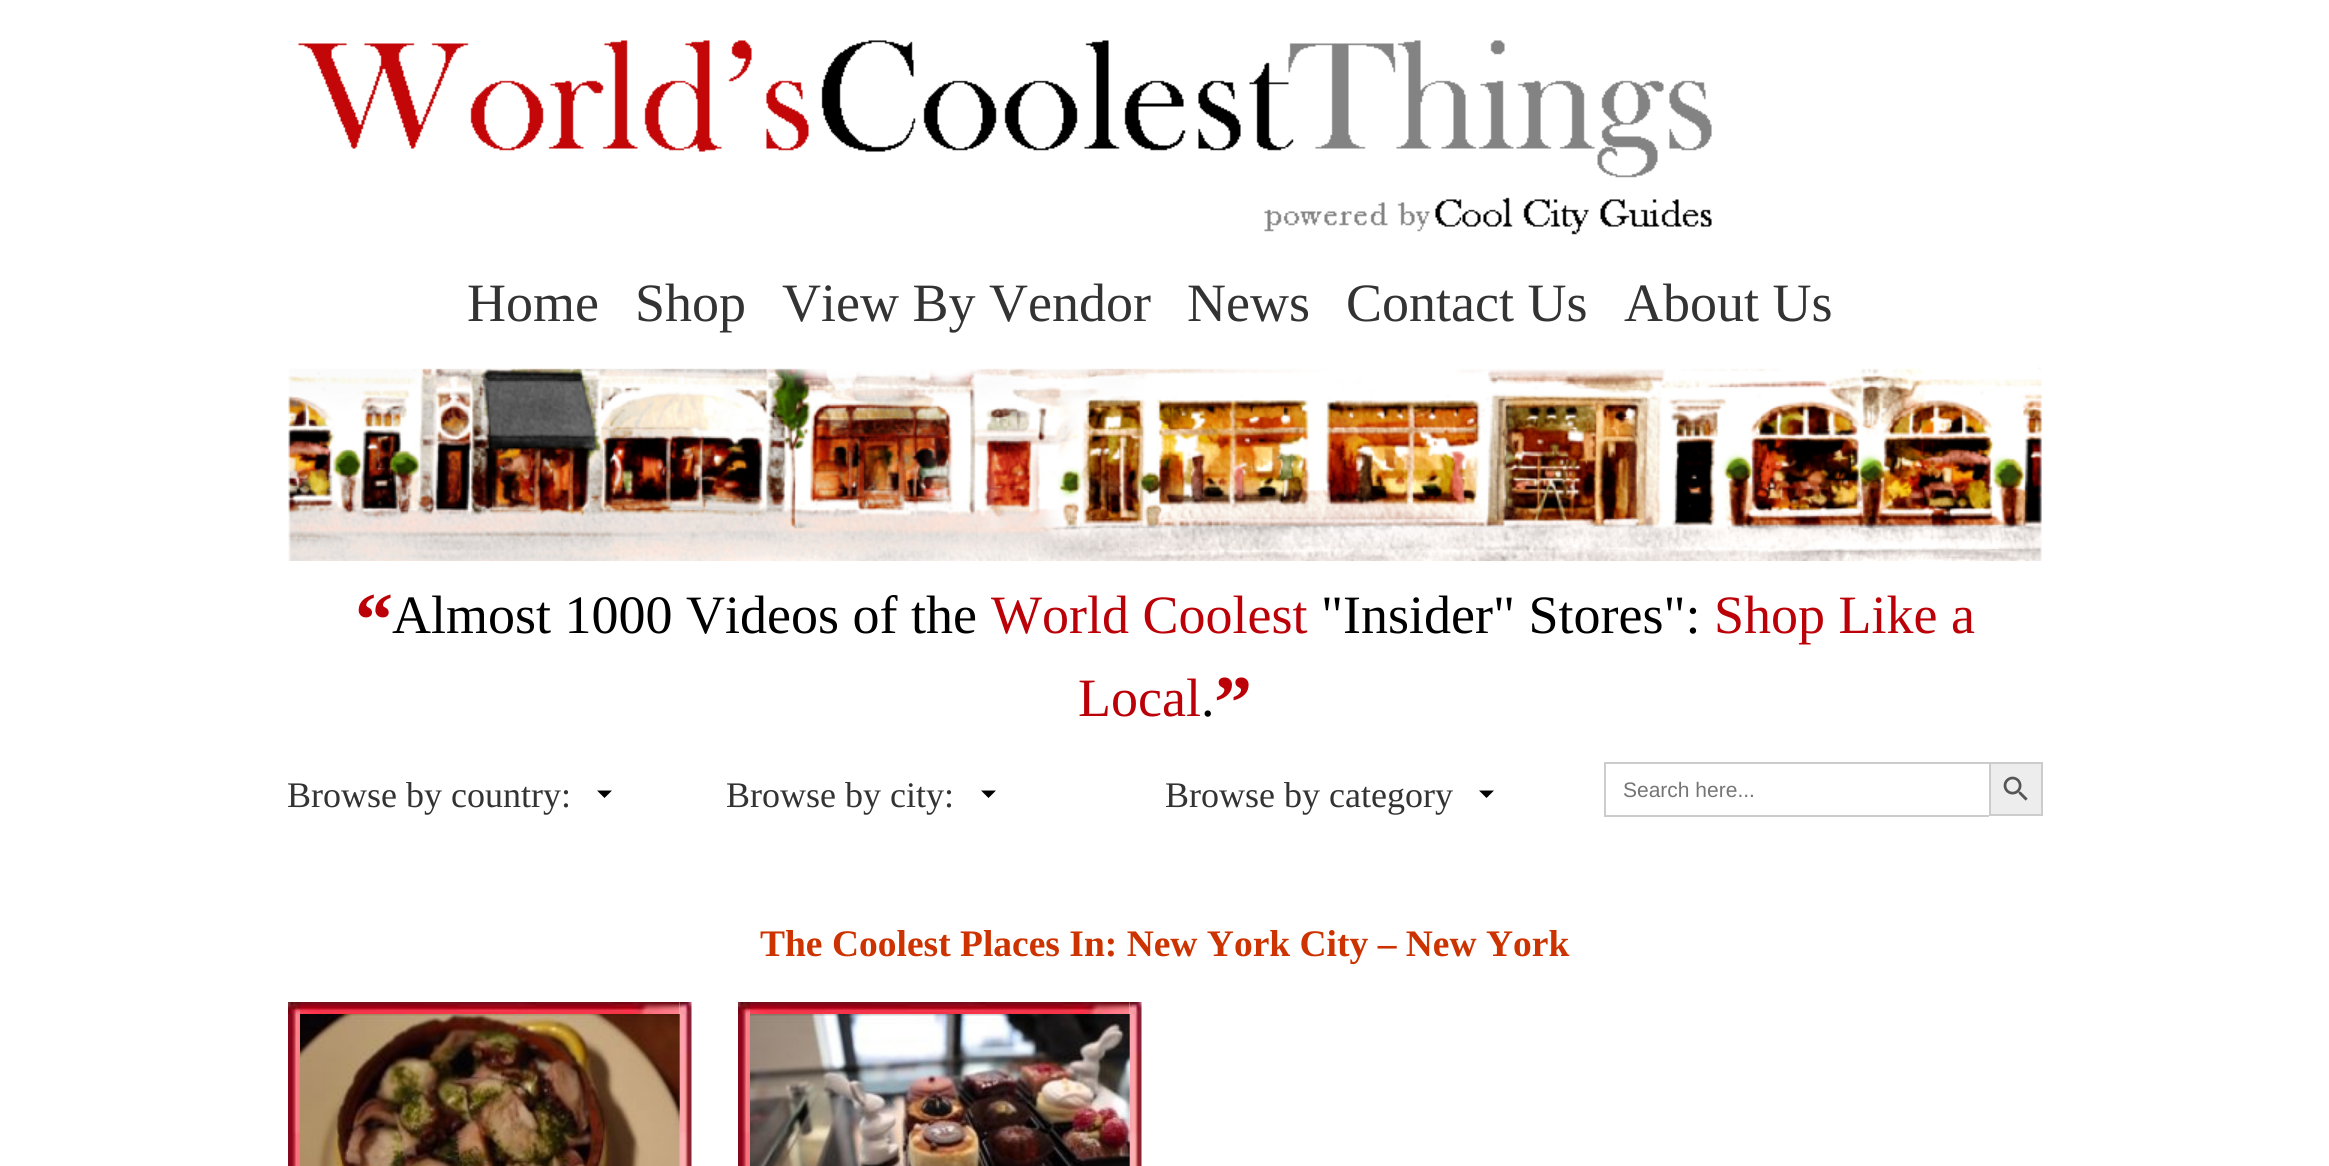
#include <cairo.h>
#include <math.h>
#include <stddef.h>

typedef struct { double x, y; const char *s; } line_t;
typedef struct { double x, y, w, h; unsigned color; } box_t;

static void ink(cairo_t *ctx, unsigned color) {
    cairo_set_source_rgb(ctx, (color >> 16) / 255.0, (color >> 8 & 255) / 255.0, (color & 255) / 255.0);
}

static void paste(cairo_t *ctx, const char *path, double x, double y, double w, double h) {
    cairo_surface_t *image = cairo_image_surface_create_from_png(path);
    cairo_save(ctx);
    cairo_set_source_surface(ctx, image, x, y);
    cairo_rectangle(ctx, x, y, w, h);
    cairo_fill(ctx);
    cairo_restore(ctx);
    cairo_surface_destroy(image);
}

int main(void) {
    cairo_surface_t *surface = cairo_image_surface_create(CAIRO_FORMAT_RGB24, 2329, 1166);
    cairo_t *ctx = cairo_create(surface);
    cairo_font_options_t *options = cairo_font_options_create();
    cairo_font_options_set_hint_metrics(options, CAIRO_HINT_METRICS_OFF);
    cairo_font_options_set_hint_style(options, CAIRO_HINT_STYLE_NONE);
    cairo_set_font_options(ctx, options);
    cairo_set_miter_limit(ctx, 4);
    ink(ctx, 0xFFFFFF);
    cairo_paint(ctx);
    paste(ctx, "media/1.png", 298, 40, 1414, 195);
    cairo_select_font_face(ctx, "Liberation Serif", CAIRO_FONT_SLANT_NORMAL, CAIRO_FONT_WEIGHT_NORMAL);
    cairo_set_font_size(ctx, 54);
    ink(ctx, 0x333333);
    {
        static const line_t items[] = {
            {467, 321, "Home"},
            {635, 321, "Shop"},
            {782, 321, "View By Vendor"},
            {1187, 321, "News"},
            {1346, 321, "Contact Us"},
            {1624, 321, "About Us"},
        };
        for (size_t i = 0; i < sizeof items / sizeof *items; i++) {
            cairo_move_to(ctx, items[i].x, items[i].y);
            cairo_show_text(ctx, items[i].s);
        }
    }
    paste(ctx, "media/2.png", 288, 367, 1754, 194);
    cairo_select_font_face(ctx, "Liberation Serif", CAIRO_FONT_SLANT_NORMAL, CAIRO_FONT_WEIGHT_BOLD);
    cairo_set_font_size(ctx, 76);
    ink(ctx, 0xBB0007);
    cairo_move_to(ctx, 355, 645);
    cairo_show_text(ctx, "“");
    cairo_select_font_face(ctx, "Liberation Serif", CAIRO_FONT_SLANT_NORMAL, CAIRO_FONT_WEIGHT_NORMAL);
    cairo_set_font_size(ctx, 54);
    ink(ctx, 0x000000);
    cairo_move_to(ctx, 392, 633);
    cairo_show_text(ctx, "Almost 1000 Videos of the");
    ink(ctx, 0xBB0007);
    cairo_move_to(ctx, 991, 633);
    cairo_show_text(ctx, "World Coolest");
    ink(ctx, 0x000000);
    cairo_move_to(ctx, 1321, 633);
    cairo_show_text(ctx, "\"Insider\" Stores\":");
    ink(ctx, 0xBB0007);
    cairo_move_to(ctx, 1714, 633);
    cairo_show_text(ctx, "Shop Like a");
    cairo_move_to(ctx, 1078, 716);
    cairo_show_text(ctx, "Local");
    ink(ctx, 0x000000);
    cairo_move_to(ctx, 1201, 716);
    cairo_show_text(ctx, ".");
    cairo_select_font_face(ctx, "Liberation Serif", CAIRO_FONT_SLANT_NORMAL, CAIRO_FONT_WEIGHT_BOLD);
    cairo_set_font_size(ctx, 76);
    ink(ctx, 0xBB0007);
    cairo_move_to(ctx, 1214, 728);
    cairo_show_text(ctx, "”");
    cairo_select_font_face(ctx, "Liberation Serif", CAIRO_FONT_SLANT_NORMAL, CAIRO_FONT_WEIGHT_NORMAL);
    cairo_set_font_size(ctx, 36);
    ink(ctx, 0x333333);
    cairo_move_to(ctx, 287, 807);
    cairo_show_text(ctx, "Browse by country:");
    ink(ctx, 0x000000);
    cairo_new_path(ctx);
    cairo_move_to(ctx, 597, 790.5);
    cairo_line_to(ctx, 612, 790.5);
    cairo_line_to(ctx, 604.5, 798);
    cairo_close_path(ctx);
    cairo_fill(ctx);
    ink(ctx, 0x333333);
    cairo_move_to(ctx, 726, 807);
    cairo_show_text(ctx, "Browse by city:");
    ink(ctx, 0x000000);
    cairo_new_path(ctx);
    cairo_move_to(ctx, 981, 790.5);
    cairo_line_to(ctx, 996, 790.5);
    cairo_line_to(ctx, 988.5, 798);
    cairo_close_path(ctx);
    cairo_fill(ctx);
    ink(ctx, 0x333333);
    cairo_move_to(ctx, 1165, 807);
    cairo_show_text(ctx, "Browse by category");
    ink(ctx, 0x000000);
    cairo_new_path(ctx);
    cairo_move_to(ctx, 1479, 790.5);
    cairo_line_to(ctx, 1494, 790.5);
    cairo_line_to(ctx, 1486.5, 798);
    cairo_close_path(ctx);
    cairo_fill(ctx);
    {
        static const box_t items[] = {
            {1604, 762, 385, 2, 0xCCCCCC},
            {1604, 815, 385, 2, 0xCCCCCC},
            {1604, 762, 2, 54, 0xCCCCCC},
        };
        for (size_t i = 0; i < sizeof items / sizeof *items; i++) {
            ink(ctx, items[i].color);
            cairo_rectangle(ctx, items[i].x, items[i].y, items[i].w, items[i].h);
            cairo_fill(ctx);
        }
    }
    cairo_select_font_face(ctx, "Liberation Sans", CAIRO_FONT_SLANT_NORMAL, CAIRO_FONT_WEIGHT_NORMAL);
    cairo_set_font_size(ctx, 21);
    ink(ctx, 0x757575);
    cairo_move_to(ctx, 1623, 797);
    cairo_show_text(ctx, "Search here...");
    ink(ctx, 0xEDEDED);
    cairo_rectangle(ctx, 1990, 763, 52, 52);
    cairo_fill_preserve(ctx);
    ink(ctx, 0xCCCCCC);
    cairo_stroke(ctx);
    paste(ctx, "media/3.png", 2003, 776, 25, 25);
    cairo_select_font_face(ctx, "Liberation Serif", CAIRO_FONT_SLANT_NORMAL, CAIRO_FONT_WEIGHT_BOLD);
    cairo_set_font_size(ctx, 37.5);
    ink(ctx, 0xCC3300);
    cairo_move_to(ctx, 760, 956);
    cairo_show_text(ctx, "The Coolest Places In: New York City – New York");
    paste(ctx, "media/4.png", 288, 1002, 404, 164);
    paste(ctx, "media/5.png", 679, 1014, 1, 152);
    paste(ctx, "media/6.png", 738, 1002, 404, 164);
    paste(ctx, "media/7.png", 1129, 1014, 1, 152);
    cairo_surface_write_to_png(surface, "image.png");
    cairo_font_options_destroy(options);
    cairo_destroy(ctx);
    cairo_surface_destroy(surface);
    return 0;
}
